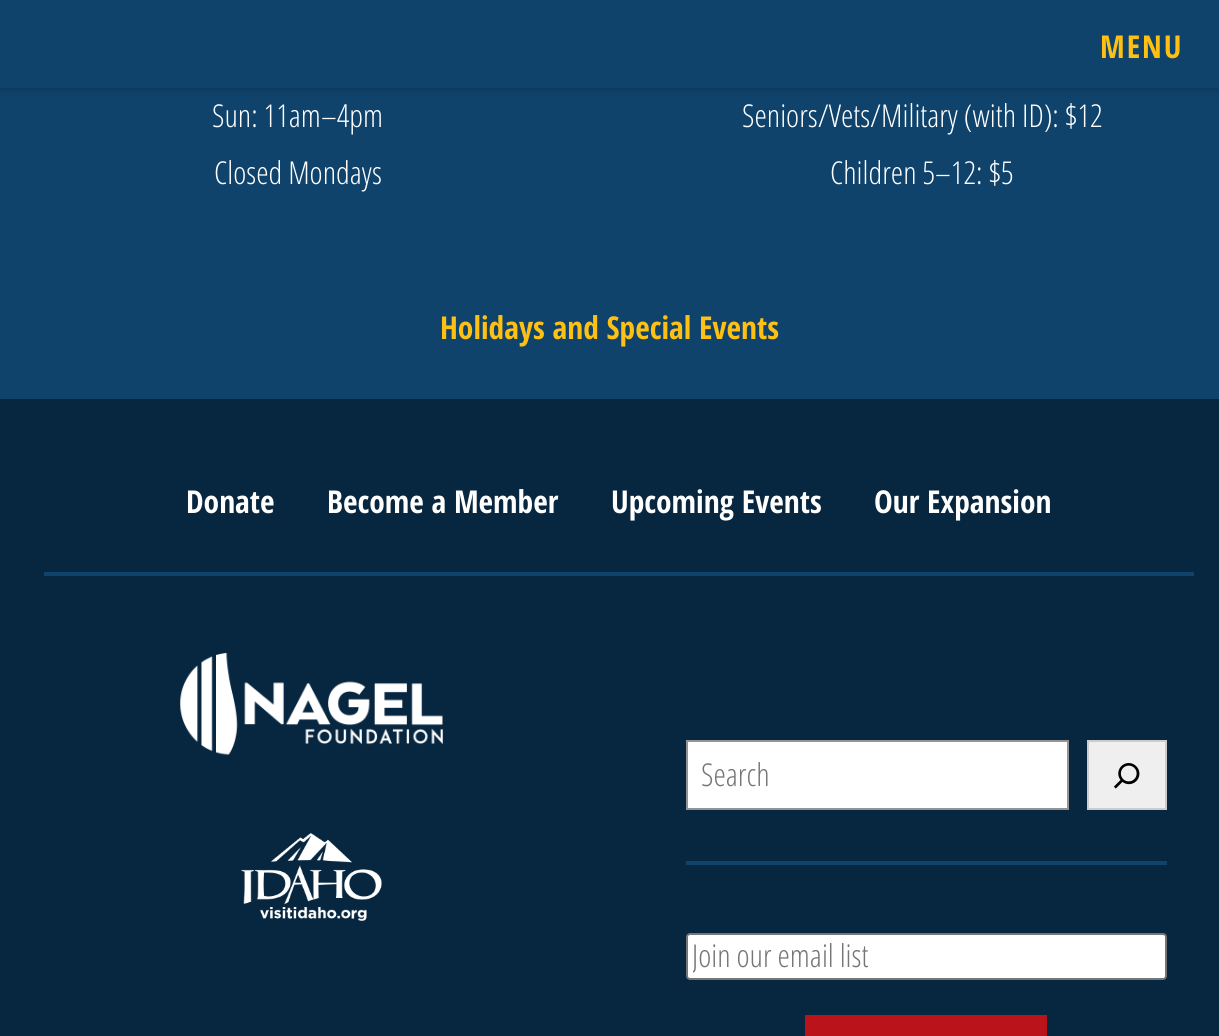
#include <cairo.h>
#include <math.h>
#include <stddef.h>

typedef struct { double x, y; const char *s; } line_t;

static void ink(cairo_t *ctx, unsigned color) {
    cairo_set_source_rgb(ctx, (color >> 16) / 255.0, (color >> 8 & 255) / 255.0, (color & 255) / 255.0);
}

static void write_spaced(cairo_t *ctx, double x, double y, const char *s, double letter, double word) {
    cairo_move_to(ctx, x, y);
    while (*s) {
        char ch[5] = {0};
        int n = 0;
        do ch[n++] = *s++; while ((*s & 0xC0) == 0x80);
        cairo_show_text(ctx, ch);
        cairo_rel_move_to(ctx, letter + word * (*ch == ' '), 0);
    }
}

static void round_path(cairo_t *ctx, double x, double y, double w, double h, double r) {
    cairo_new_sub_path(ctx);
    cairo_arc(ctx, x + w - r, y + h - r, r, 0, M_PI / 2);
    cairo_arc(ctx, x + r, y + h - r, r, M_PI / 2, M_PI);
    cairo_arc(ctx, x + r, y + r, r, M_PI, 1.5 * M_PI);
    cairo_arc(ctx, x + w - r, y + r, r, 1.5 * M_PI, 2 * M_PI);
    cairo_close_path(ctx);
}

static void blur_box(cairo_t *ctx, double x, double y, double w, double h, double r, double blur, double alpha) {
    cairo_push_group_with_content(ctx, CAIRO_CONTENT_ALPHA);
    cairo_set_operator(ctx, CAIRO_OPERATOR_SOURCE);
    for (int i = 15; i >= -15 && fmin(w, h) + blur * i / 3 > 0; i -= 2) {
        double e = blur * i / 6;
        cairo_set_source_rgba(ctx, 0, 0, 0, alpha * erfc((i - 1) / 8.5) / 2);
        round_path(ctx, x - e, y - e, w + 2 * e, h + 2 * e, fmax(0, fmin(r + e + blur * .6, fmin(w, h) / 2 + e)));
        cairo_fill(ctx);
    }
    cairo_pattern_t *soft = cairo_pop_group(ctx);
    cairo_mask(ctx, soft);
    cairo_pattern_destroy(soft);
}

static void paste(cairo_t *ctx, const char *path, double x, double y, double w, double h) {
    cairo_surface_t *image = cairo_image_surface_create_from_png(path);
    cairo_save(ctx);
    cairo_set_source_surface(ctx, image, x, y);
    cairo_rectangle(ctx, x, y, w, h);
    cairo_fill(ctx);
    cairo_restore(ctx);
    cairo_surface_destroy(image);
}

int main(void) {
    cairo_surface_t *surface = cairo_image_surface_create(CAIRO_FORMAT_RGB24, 1219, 1036);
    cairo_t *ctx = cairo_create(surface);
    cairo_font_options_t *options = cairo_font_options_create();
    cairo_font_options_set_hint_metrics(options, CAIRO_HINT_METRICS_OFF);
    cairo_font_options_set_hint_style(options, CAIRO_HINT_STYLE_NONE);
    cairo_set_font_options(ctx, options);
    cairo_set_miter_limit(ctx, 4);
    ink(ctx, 0x07263F);
    cairo_paint(ctx);
    ink(ctx, 0x0F436C);
    cairo_rectangle(ctx, 0, 0, 1219, 399);
    cairo_fill(ctx);
    cairo_save(ctx);
    cairo_set_fill_rule(ctx, CAIRO_FILL_RULE_EVEN_ODD);
    cairo_new_path(ctx);
    cairo_move_to(ctx, 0, 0);
    cairo_line_to(ctx, 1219, 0);
    cairo_line_to(ctx, 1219, 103);
    cairo_line_to(ctx, 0, 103);
    cairo_close_path(ctx);
    cairo_move_to(ctx, 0, 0);
    cairo_line_to(ctx, 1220, 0);
    cairo_line_to(ctx, 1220, 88);
    cairo_line_to(ctx, 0, 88);
    cairo_close_path(ctx);
    cairo_clip(ctx);
    ink(ctx, 0x000000);
    blur_box(ctx, 0, 0, 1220, 88, 0, 4.5, 0.3);
    cairo_restore(ctx);
    cairo_set_source_rgba(ctx, 0.059, 0.263, 0.424, 0.9);
    cairo_rectangle(ctx, 0, 87, 1219, 1);
    cairo_fill(ctx);
    cairo_select_font_face(ctx, "Open Sans Condensed", CAIRO_FONT_SLANT_NORMAL, CAIRO_FONT_WEIGHT_BOLD);
    cairo_set_font_size(ctx, 31.5);
    ink(ctx, 0xFEC013);
    write_spaced(ctx, 1100, 58, "MENU", 2, 0);
    cairo_select_font_face(ctx, "Open Sans Condensed Light", CAIRO_FONT_SLANT_NORMAL, CAIRO_FONT_WEIGHT_NORMAL);
    ink(ctx, 0xFFFFFF);
    {
        static const line_t items[] = {
            {212, 127, "Sun: 11am–4pm"},
            {214, 184, "Closed Mondays"},
            {742, 127, "Seniors/Vets/Military (with ID): $12"},
            {830, 184, "Children 5–12: $5"},
        };
        for (size_t i = 0; i < sizeof items / sizeof *items; i++) {
            cairo_move_to(ctx, items[i].x, items[i].y);
            cairo_show_text(ctx, items[i].s);
        }
    }
    cairo_select_font_face(ctx, "Open Sans Condensed", CAIRO_FONT_SLANT_NORMAL, CAIRO_FONT_WEIGHT_BOLD);
    ink(ctx, 0xFEC013);
    cairo_move_to(ctx, 440, 339);
    cairo_show_text(ctx, "Holidays and Special Events");
    ink(ctx, 0xFFFFFF);
    {
        static const line_t items[] = {
            {186, 513, "Donate"},
            {327, 513, "Become a Member"},
            {611, 513, "Upcoming Events"},
            {874, 513, "Our Expansion"},
        };
        for (size_t i = 0; i < sizeof items / sizeof *items; i++) {
            cairo_move_to(ctx, items[i].x, items[i].y);
            cairo_show_text(ctx, items[i].s);
        }
    }
    ink(ctx, 0x0F436C);
    cairo_rectangle(ctx, 44, 572, 1150, 4);
    cairo_fill(ctx);
    paste(ctx, "media/1.png", 180, 653, 263, 102);
    paste(ctx, "media/2.png", 241, 833, 141, 88);
    ink(ctx, 0xFFFFFF);
    cairo_rectangle(ctx, 687, 741, 381, 68);
    cairo_fill_preserve(ctx);
    ink(ctx, 0x949494);
    cairo_stroke(ctx);
    cairo_select_font_face(ctx, "Open Sans Condensed Light", CAIRO_FONT_SLANT_NORMAL, CAIRO_FONT_WEIGHT_NORMAL);
    ink(ctx, 0x757575);
    cairo_move_to(ctx, 701, 786);
    cairo_show_text(ctx, "Search");
    ink(ctx, 0xEFEFEF);
    cairo_rectangle(ctx, 1088, 741, 78, 68);
    cairo_fill_preserve(ctx);
    ink(ctx, 0xCCCCCC);
    cairo_stroke(ctx);
    paste(ctx, "media/3.png", 1114, 763, 26, 26);
    ink(ctx, 0x0F436C);
    cairo_rectangle(ctx, 686, 861, 481, 4);
    cairo_fill(ctx);
    ink(ctx, 0xFFFFFF);
    round_path(ctx, 687, 934, 479, 45, 3);
    cairo_fill_preserve(ctx);
    ink(ctx, 0x767676);
    cairo_stroke(ctx);
    cairo_save(ctx);
    cairo_rectangle(ctx, 693, 936, 467, 41);
    cairo_clip(ctx);
    ink(ctx, 0x757575);
    cairo_move_to(ctx, 692, 967);
    cairo_show_text(ctx, "Join our email list");
    cairo_restore(ctx);
    ink(ctx, 0xBA141A);
    cairo_rectangle(ctx, 805, 1015, 242, 21);
    cairo_fill(ctx);
    cairo_surface_write_to_png(surface, "image.png");
    cairo_font_options_destroy(options);
    cairo_destroy(ctx);
    cairo_surface_destroy(surface);
    return 0;
}
